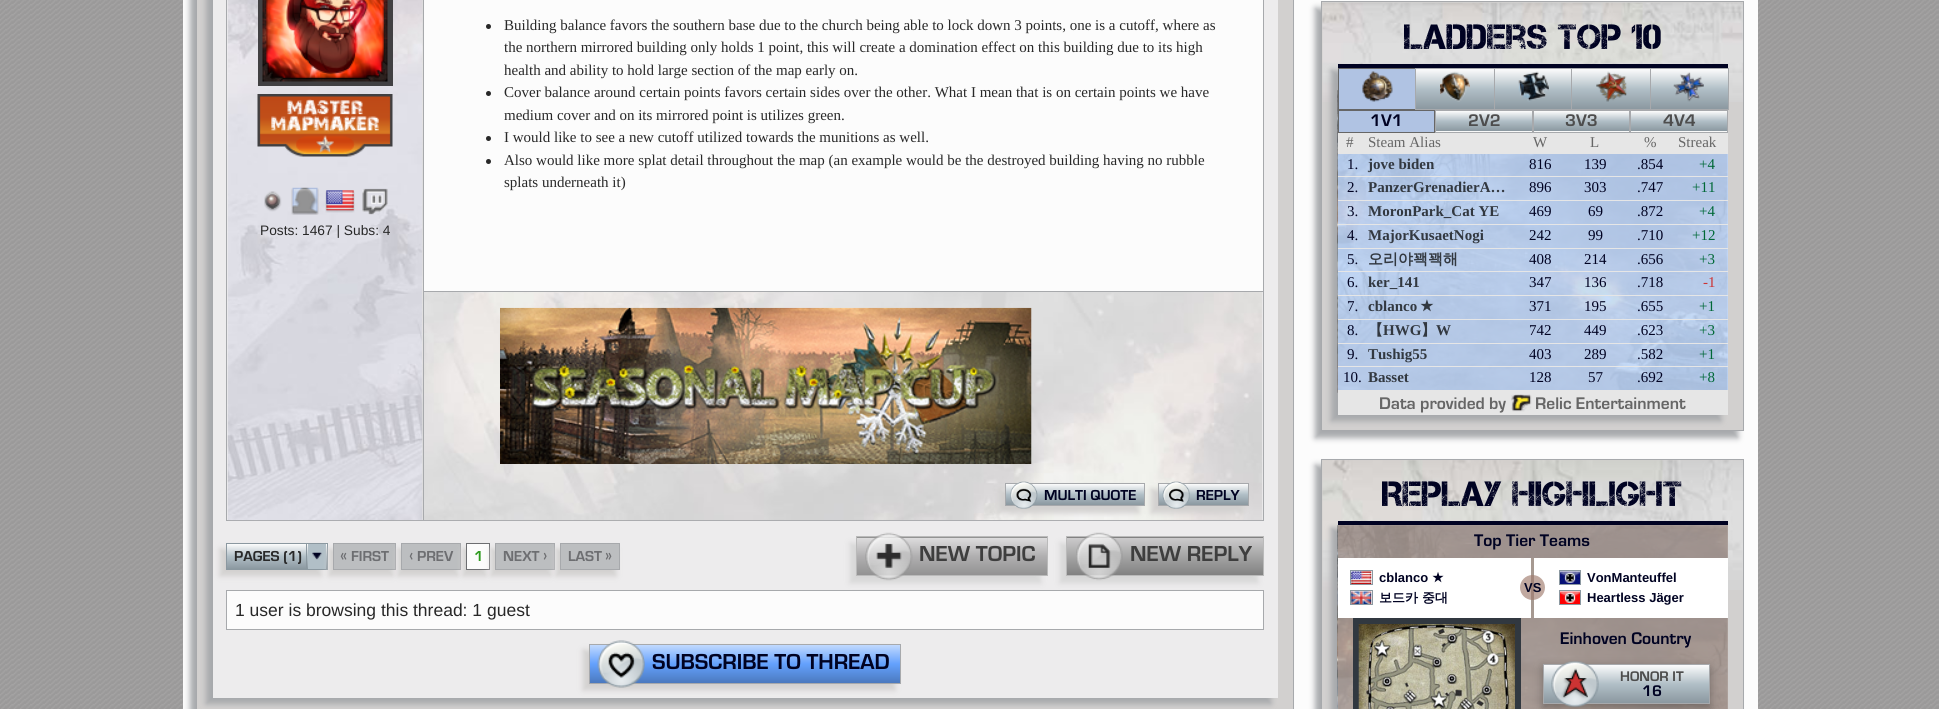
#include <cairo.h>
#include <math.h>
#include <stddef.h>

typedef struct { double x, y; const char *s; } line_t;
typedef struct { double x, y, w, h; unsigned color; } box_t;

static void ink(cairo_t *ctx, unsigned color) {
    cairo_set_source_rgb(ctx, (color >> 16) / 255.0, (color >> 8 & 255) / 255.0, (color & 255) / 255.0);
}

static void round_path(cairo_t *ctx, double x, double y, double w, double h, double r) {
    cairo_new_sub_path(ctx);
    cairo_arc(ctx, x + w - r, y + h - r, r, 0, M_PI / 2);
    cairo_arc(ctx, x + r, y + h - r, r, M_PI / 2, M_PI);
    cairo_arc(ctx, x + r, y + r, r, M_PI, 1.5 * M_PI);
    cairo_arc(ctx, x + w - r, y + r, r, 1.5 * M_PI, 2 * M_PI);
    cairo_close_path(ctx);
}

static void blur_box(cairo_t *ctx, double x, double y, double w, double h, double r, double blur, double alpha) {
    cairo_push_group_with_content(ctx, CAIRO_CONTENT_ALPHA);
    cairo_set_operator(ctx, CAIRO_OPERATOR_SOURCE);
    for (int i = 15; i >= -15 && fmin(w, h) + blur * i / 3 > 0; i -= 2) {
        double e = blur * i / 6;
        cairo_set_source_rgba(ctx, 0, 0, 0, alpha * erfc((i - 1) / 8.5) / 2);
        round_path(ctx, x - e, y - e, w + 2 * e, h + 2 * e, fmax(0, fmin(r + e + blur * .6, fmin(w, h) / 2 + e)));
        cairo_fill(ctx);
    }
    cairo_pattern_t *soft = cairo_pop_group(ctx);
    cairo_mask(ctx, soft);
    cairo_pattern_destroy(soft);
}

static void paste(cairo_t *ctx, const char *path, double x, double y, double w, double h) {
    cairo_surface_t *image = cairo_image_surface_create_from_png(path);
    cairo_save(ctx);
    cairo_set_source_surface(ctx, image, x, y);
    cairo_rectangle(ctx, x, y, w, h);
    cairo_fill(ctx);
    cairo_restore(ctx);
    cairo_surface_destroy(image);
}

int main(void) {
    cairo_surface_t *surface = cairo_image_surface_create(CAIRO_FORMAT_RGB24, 1939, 709);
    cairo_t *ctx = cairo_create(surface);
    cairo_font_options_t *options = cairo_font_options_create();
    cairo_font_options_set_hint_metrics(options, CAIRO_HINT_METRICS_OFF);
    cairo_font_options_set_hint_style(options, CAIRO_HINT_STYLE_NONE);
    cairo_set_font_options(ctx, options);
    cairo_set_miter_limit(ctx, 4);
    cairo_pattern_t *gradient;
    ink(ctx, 0xFFFFFF);
    cairo_paint(ctx);
    paste(ctx, "media/1.png", 0, 0, 1939, 709);
    ink(ctx, 0xFCFCFC);
    cairo_rectangle(ctx, 183, 0, 1575, 709);
    cairo_fill(ctx);
    ink(ctx, 0xA7A9AC);
    blur_box(ctx, 190, -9, 1098, 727, 0, 3, 1);
    ink(ctx, 0xD2D0CF);
    cairo_rectangle(ctx, 196.5, -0.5, 1097, 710);
    cairo_fill_preserve(ctx);
    ink(ctx, 0xA7A9AC);
    cairo_set_line_width(ctx, 1);
    cairo_stroke(ctx);
    ink(ctx, 0xA7A9AC);
    blur_box(ctx, 206, -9, 1065, 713, 0, 3, 1);
    ink(ctx, 0xEDECED);
    cairo_rectangle(ctx, 213, 0, 1065, 698);
    cairo_fill(ctx);
    cairo_rectangle(ctx, 226.5, -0.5, 1037, 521);
    ink(ctx, 0xA7A9AC);
    cairo_stroke(ctx);
    paste(ctx, "media/2.png", 227, 0, 196, 521);
    ink(ctx, 0x414042);
    cairo_rectangle(ctx, 258, 0, 135, 86);
    cairo_fill(ctx);
    paste(ctx, "media/3.png", 262, 0, 126, 82);
    paste(ctx, "media/4.png", 257, 94, 136, 63);
    paste(ctx, "media/5.png", 264, 191, 18, 21);
    paste(ctx, "media/6.png", 291, 187, 28, 28);
    paste(ctx, "media/7.png", 325, 190, 30, 23);
    paste(ctx, "media/8.png", 362, 188, 26, 27);
    cairo_select_font_face(ctx, "Liberation Sans", CAIRO_FONT_SLANT_NORMAL, CAIRO_FONT_WEIGHT_NORMAL);
    cairo_set_font_size(ctx, 13.75);
    ink(ctx, 0x282828);
    cairo_move_to(ctx, 260, 235);
    cairo_show_text(ctx, "Posts: 1467 | Subs: 4");
    paste(ctx, "media/9.png", 422, 0, 841, 521);
    {
        static const box_t items[] = {
            {423, 0, 1, 520, 0xA7A9AC},
            {424, 0, 839, 291, 0xFCFCFC},
            {424, 291, 839, 1, 0xA7A9AC},
        };
        for (size_t i = 0; i < sizeof items / sizeof *items; i++) {
            ink(ctx, items[i].color);
            cairo_rectangle(ctx, items[i].x, items[i].y, items[i].w, items[i].h);
            cairo_fill(ctx);
        }
    }
    ink(ctx, 0x282828);
    cairo_arc(ctx, 488.5, 26.5, 2.5, 0, 2 * M_PI);
    cairo_fill(ctx);
    cairo_select_font_face(ctx, "Liberation Serif", CAIRO_FONT_SLANT_NORMAL, CAIRO_FONT_WEIGHT_NORMAL);
    cairo_set_font_size(ctx, 15);
    {
        static const line_t items[] = {
            {504, 30, "Building balance favors the southern base due to the church being able to lock down 3 points, one is a cutoff, where as"},
            {504, 52, "the northern mirrored building only holds 1 point, this will create a domination effect on this building due to its high"},
            {504, 75, "health and ability to hold large section of the map early on."},
        };
        for (size_t i = 0; i < sizeof items / sizeof *items; i++) {
            cairo_move_to(ctx, items[i].x, items[i].y);
            cairo_show_text(ctx, items[i].s);
        }
    }
    cairo_new_path(ctx);
    cairo_arc(ctx, 488.5, 93.5, 2.5, 0, 2 * M_PI);
    cairo_fill(ctx);
    cairo_move_to(ctx, 504, 97);
    cairo_show_text(ctx, "Cover balance around certain points favors certain sides over the other. What I mean that is on certain points we have");
    cairo_move_to(ctx, 504, 120);
    cairo_show_text(ctx, "medium cover and on its mirrored point is utilizes green.");
    cairo_new_path(ctx);
    cairo_arc(ctx, 488.5, 138.5, 2.5, 0, 2 * M_PI);
    cairo_fill(ctx);
    cairo_move_to(ctx, 504, 142);
    cairo_show_text(ctx, "I would like to see a new cutoff utilized towards the munitions as well.");
    cairo_new_path(ctx);
    cairo_arc(ctx, 488.5, 161.5, 2.5, 0, 2 * M_PI);
    cairo_fill(ctx);
    cairo_move_to(ctx, 504, 165);
    cairo_show_text(ctx, "Also would like more splat detail throughout the map (an example would be the destroyed building having no rubble");
    cairo_move_to(ctx, 504, 187);
    cairo_show_text(ctx, "splats underneath it)");
    paste(ctx, "media/10.png", 500, 307, 532, 157);
    ink(ctx, 0xD2D0CF);
    blur_box(ctx, 999, 489, 140, 24, 0, 3, 1);
    gradient = cairo_pattern_create_linear(1006, 484, 1006, 505);
    cairo_pattern_add_color_stop_rgba(gradient, 0, 0.988, 0.988, 0.988, 1);
    cairo_pattern_add_color_stop_rgba(gradient, 0.5, 0.694, 0.749, 0.78, 1);
    cairo_pattern_add_color_stop_rgba(gradient, 1, 0.545, 0.596, 0.627, 1);
    cairo_set_source(ctx, gradient);
    cairo_pattern_destroy(gradient);
    cairo_rectangle(ctx, 1006, 484, 138, 21);
    cairo_fill(ctx);
    cairo_rectangle(ctx, 1005.5, 483.5, 139, 22);
    ink(ctx, 0xA7A9AC);
    cairo_stroke(ctx);
    paste(ctx, "media/11.png", 1010, 481, 28, 28);
    cairo_select_font_face(ctx, "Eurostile", CAIRO_FONT_SLANT_NORMAL, CAIRO_FONT_WEIGHT_BOLD);
    ink(ctx, 0x000222);
    cairo_move_to(ctx, 1044, 500);
    cairo_show_text(ctx, "MULTI QUOTE");
    ink(ctx, 0xD2D0CF);
    blur_box(ctx, 1151, 489, 92, 24, 0, 3, 1);
    gradient = cairo_pattern_create_linear(1159, 484, 1159, 505);
    cairo_pattern_add_color_stop_rgba(gradient, 0, 0.988, 0.988, 0.988, 1);
    cairo_pattern_add_color_stop_rgba(gradient, 0.5, 0.694, 0.749, 0.78, 1);
    cairo_pattern_add_color_stop_rgba(gradient, 1, 0.545, 0.596, 0.627, 1);
    cairo_set_source(ctx, gradient);
    cairo_pattern_destroy(gradient);
    cairo_rectangle(ctx, 1159, 484, 89, 21);
    cairo_fill(ctx);
    cairo_rectangle(ctx, 1158.5, 483.5, 90, 22);
    ink(ctx, 0xA7A9AC);
    cairo_stroke(ctx);
    paste(ctx, "media/12.png", 1162, 481, 28, 28);
    ink(ctx, 0x000222);
    cairo_move_to(ctx, 1196, 500);
    cairo_show_text(ctx, "REPLY");
    ink(ctx, 0xD2D0CF);
    blur_box(ctx, 220, 549, 101, 27, 0, 3, 1);
    gradient = cairo_pattern_create_linear(228, 544, 228, 569);
    cairo_pattern_add_color_stop_rgba(gradient, 0, 0.988, 0.988, 0.988, 1);
    cairo_pattern_add_color_stop_rgba(gradient, 0.5, 0.694, 0.749, 0.78, 1);
    cairo_pattern_add_color_stop_rgba(gradient, 1, 0.545, 0.596, 0.627, 1);
    cairo_set_source(ctx, gradient);
    cairo_pattern_destroy(gradient);
    cairo_rectangle(ctx, 227, 544, 100, 25);
    cairo_fill(ctx);
    cairo_rectangle(ctx, 226.5, 543.5, 101, 26);
    ink(ctx, 0x8B98A0);
    cairo_stroke(ctx);
    ink(ctx, 0x282828);
    cairo_move_to(ctx, 234, 561);
    cairo_show_text(ctx, "PAGES (1)");
    ink(ctx, 0xB1BFC7);
    cairo_rectangle(ctx, 308, 544, 18, 25);
    cairo_fill(ctx);
    ink(ctx, 0x8B98A0);
    cairo_rectangle(ctx, 306, 544, 1, 25);
    cairo_fill(ctx);
    paste(ctx, "media/13.png", 312, 552, 10, 8);
    ink(ctx, 0xD2D0CF);
    blur_box(ctx, 329, 549, 64, 27, 0, 3, 1);
    ink(ctx, 0xBCBEC0);
    cairo_rectangle(ctx, 333.5, 543.5, 62, 26);
    cairo_fill_preserve(ctx);
    ink(ctx, 0xA7A9AC);
    cairo_stroke(ctx);
    ink(ctx, 0x6D6E71);
    cairo_move_to(ctx, 340, 560);
    cairo_show_text(ctx, "«");
    ink(ctx, 0xD2D0CF);
    blur_box(ctx, 398, 549, 60, 27, 0, 3, 1);
    ink(ctx, 0x6D6E71);
    cairo_move_to(ctx, 351, 561);
    cairo_show_text(ctx, "FIRST");
    ink(ctx, 0xBCBEC0);
    cairo_rectangle(ctx, 401.5, 543.5, 59, 26);
    cairo_fill_preserve(ctx);
    ink(ctx, 0xA7A9AC);
    cairo_stroke(ctx);
    ink(ctx, 0x6D6E71);
    cairo_move_to(ctx, 409, 560);
    cairo_show_text(ctx, "‹");
    ink(ctx, 0xD2D0CF);
    blur_box(ctx, 463, 549, 23, 27, 0, 3, 1);
    ink(ctx, 0x6D6E71);
    cairo_move_to(ctx, 417, 561);
    cairo_show_text(ctx, "PREV");
    ink(ctx, 0xFCFCFC);
    cairo_rectangle(ctx, 466.5, 543.5, 23, 26);
    cairo_fill_preserve(ctx);
    ink(ctx, 0x6D6E71);
    cairo_stroke(ctx);
    ink(ctx, 0x2E9B1E);
    cairo_move_to(ctx, 474, 561);
    cairo_show_text(ctx, "1");
    ink(ctx, 0xD2D0CF);
    blur_box(ctx, 491, 549, 60, 27, 0, 3, 1);
    ink(ctx, 0xBCBEC0);
    cairo_rectangle(ctx, 495.5, 543.5, 59, 26);
    cairo_fill_preserve(ctx);
    ink(ctx, 0xA7A9AC);
    cairo_stroke(ctx);
    ink(ctx, 0x6D6E71);
    cairo_move_to(ctx, 503, 561);
    cairo_show_text(ctx, "NEXT");
    ink(ctx, 0xD2D0CF);
    blur_box(ctx, 556, 549, 60, 27, 0, 3, 1);
    ink(ctx, 0x6D6E71);
    cairo_move_to(ctx, 543, 560);
    cairo_show_text(ctx, "›");
    ink(ctx, 0xBCBEC0);
    cairo_rectangle(ctx, 560.5, 543.5, 59, 26);
    cairo_fill_preserve(ctx);
    ink(ctx, 0xA7A9AC);
    cairo_stroke(ctx);
    ink(ctx, 0x6D6E71);
    cairo_move_to(ctx, 568, 561);
    cairo_show_text(ctx, "LAST");
    cairo_move_to(ctx, 605, 560);
    cairo_show_text(ctx, "»");
    ink(ctx, 0xFCFCFC);
    cairo_rectangle(ctx, 226.5, 590.5, 1037, 39);
    cairo_fill_preserve(ctx);
    ink(ctx, 0xA7A9AC);
    cairo_stroke(ctx);
    ink(ctx, 0xD7D7D7);
    blur_box(ctx, 850, 543, 191, 40, 0, 3, 1);
    gradient = cairo_pattern_create_linear(858, 500, 858, 538);
    cairo_pattern_add_color_stop_rgba(gradient, 0, 0.867, 0.863, 0.867, 1);
    cairo_pattern_add_color_stop_rgba(gradient, 0.5, 0.69, 0.686, 0.69, 1);
    cairo_pattern_add_color_stop_rgba(gradient, 1, 0.573, 0.573, 0.573, 1);
    cairo_set_source(ctx, gradient);
    cairo_pattern_destroy(gradient);
    cairo_rectangle(ctx, 856, 537, 192, 1);
    cairo_fill(ctx);
    gradient = cairo_pattern_create_linear(858, 538, 858, 575);
    cairo_pattern_add_color_stop_rgba(gradient, 0, 0.867, 0.863, 0.867, 1);
    cairo_pattern_add_color_stop_rgba(gradient, 0.5, 0.69, 0.686, 0.69, 1);
    cairo_pattern_add_color_stop_rgba(gradient, 1, 0.573, 0.573, 0.573, 1);
    cairo_set_source(ctx, gradient);
    cairo_pattern_destroy(gradient);
    cairo_rectangle(ctx, 857, 538, 190, 37);
    cairo_fill(ctx);
    cairo_rectangle(ctx, 856.5, 536.5, 191, 39);
    ink(ctx, 0xBABABA);
    cairo_stroke(ctx);
    paste(ctx, "media/14.png", 865, 532, 48, 49);
    cairo_set_font_size(ctx, 22.5);
    ink(ctx, 0x3E3E3E);
    cairo_move_to(ctx, 919, 561);
    cairo_show_text(ctx, "NEW TOPIC");
    ink(ctx, 0xD7D7D7);
    blur_box(ctx, 1060, 543, 198, 40, 0, 3, 1);
    gradient = cairo_pattern_create_linear(1068, 500, 1068, 538);
    cairo_pattern_add_color_stop_rgba(gradient, 0, 0.796, 0.792, 0.796, 1);
    cairo_pattern_add_color_stop_rgba(gradient, 0.5, 0.647, 0.647, 0.647, 1);
    cairo_pattern_add_color_stop_rgba(gradient, 1, 0.506, 0.506, 0.506, 1);
    cairo_set_source(ctx, gradient);
    cairo_pattern_destroy(gradient);
    cairo_rectangle(ctx, 1066, 537, 198, 1);
    cairo_fill(ctx);
    gradient = cairo_pattern_create_linear(1068, 538, 1068, 575);
    cairo_pattern_add_color_stop_rgba(gradient, 0, 0.796, 0.792, 0.796, 1);
    cairo_pattern_add_color_stop_rgba(gradient, 0.5, 0.647, 0.647, 0.647, 1);
    cairo_pattern_add_color_stop_rgba(gradient, 1, 0.506, 0.506, 0.506, 1);
    cairo_set_source(ctx, gradient);
    cairo_pattern_destroy(gradient);
    cairo_rectangle(ctx, 1067, 538, 196, 37);
    cairo_fill(ctx);
    cairo_rectangle(ctx, 1066.5, 536.5, 197, 39);
    ink(ctx, 0xBABABA);
    cairo_stroke(ctx);
    paste(ctx, "media/15.png", 1076, 532, 47, 49);
    ink(ctx, 0x3E3E3E);
    cairo_move_to(ctx, 1130, 561);
    cairo_show_text(ctx, "NEW REPLY");
    cairo_select_font_face(ctx, "Liberation Sans", CAIRO_FONT_SLANT_NORMAL, CAIRO_FONT_WEIGHT_NORMAL);
    cairo_set_font_size(ctx, 17.5);
    ink(ctx, 0x282828);
    cairo_move_to(ctx, 235, 616);
    cairo_show_text(ctx, "1 user is browsing this thread: 1 guest");
    ink(ctx, 0xD2D0CF);
    blur_box(ctx, 583, 650, 312, 40, 0, 3, 1);
    gradient = cairo_pattern_create_linear(590, 645, 590, 683);
    cairo_pattern_add_color_stop_rgba(gradient, 0, 0.757, 0.851, 0.996, 1);
    cairo_pattern_add_color_stop_rgba(gradient, 0.5, 0.392, 0.631, 0.992, 1);
    cairo_pattern_add_color_stop_rgba(gradient, 1, 0.294, 0.475, 0.745, 1);
    cairo_set_source(ctx, gradient);
    cairo_pattern_destroy(gradient);
    cairo_rectangle(ctx, 590, 645, 310, 38);
    cairo_fill(ctx);
    cairo_rectangle(ctx, 589.5, 644.5, 311, 39);
    ink(ctx, 0xA7A9AC);
    cairo_stroke(ctx);
    paste(ctx, "media/16.png", 597, 640, 48, 48);
    cairo_select_font_face(ctx, "Eurostile", CAIRO_FONT_SLANT_NORMAL, CAIRO_FONT_WEIGHT_BOLD);
    cairo_set_font_size(ctx, 22.5);
    ink(ctx, 0x000222);
    cairo_move_to(ctx, 652, 669);
    cairo_show_text(ctx, "SUBSCRIBE TO THREAD");
    ink(ctx, 0xA7A9AC);
    blur_box(ctx, 1315, 8, 423, 430, 0, 3, 1);
    ink(ctx, 0xD2D0CF);
    cairo_rectangle(ctx, 1322, 2, 421, 428);
    cairo_fill(ctx);
    paste(ctx, "media/17.png", 1322, 2, 421, 100);
    cairo_rectangle(ctx, 1321.5, 1.5, 422, 429);
    ink(ctx, 0xA7A9AC);
    cairo_stroke(ctx);
    cairo_select_font_face(ctx, "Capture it", CAIRO_FONT_SLANT_NORMAL, CAIRO_FONT_WEIGHT_NORMAL);
    cairo_set_font_size(ctx, 35);
    ink(ctx, 0x000222);
    cairo_move_to(ctx, 1404, 49);
    cairo_show_text(ctx, "Ladders Top 10");
    ink(ctx, 0xA7A9AC);
    blur_box(ctx, 1331, 70, 390, 351, 0, 3, 1);
    ink(ctx, 0xEDECED);
    cairo_rectangle(ctx, 1727, 154, 1, 236);
    cairo_fill(ctx);
    ink(ctx, 0x000222);
    cairo_rectangle(ctx, 1338, 64, 390, 4);
    cairo_fill(ctx);
    paste(ctx, "media/18.png", 1337, 90, 391, 303);
    cairo_set_source_rgba(ctx, 0.757, 0.851, 0.996, 0.85);
    cairo_rectangle(ctx, 1338, 154, 390, 236);
    cairo_fill(ctx);
    ink(ctx, 0xB0C3E3);
    cairo_rectangle(ctx, 1339, 69, 76, 40);
    cairo_fill(ctx);
    cairo_rectangle(ctx, 1338.5, 68.5, 79, 41);
    ink(ctx, 0x666666);
    cairo_stroke(ctx);
    paste(ctx, "media/19.png", 1362, 71, 31, 31);
    gradient = cairo_pattern_create_linear(1416, 69, 1416, 109);
    cairo_pattern_add_color_stop_rgba(gradient, 0, 0.988, 0.988, 0.988, 1);
    cairo_pattern_add_color_stop_rgba(gradient, 0.5, 0.694, 0.749, 0.78, 1);
    cairo_pattern_add_color_stop_rgba(gradient, 1, 0.545, 0.596, 0.627, 1);
    cairo_set_source(ctx, gradient);
    cairo_pattern_destroy(gradient);
    cairo_rectangle(ctx, 1416, 69, 78, 40);
    cairo_fill(ctx);
    cairo_rectangle(ctx, 1415.5, 68.5, 79, 41);
    ink(ctx, 0xA7A9AC);
    cairo_stroke(ctx);
    paste(ctx, "media/20.png", 1440, 71, 30, 31);
    gradient = cairo_pattern_create_linear(1495, 69, 1495, 109);
    cairo_pattern_add_color_stop_rgba(gradient, 0, 0.988, 0.988, 0.988, 1);
    cairo_pattern_add_color_stop_rgba(gradient, 0.5, 0.694, 0.749, 0.78, 1);
    cairo_pattern_add_color_stop_rgba(gradient, 1, 0.545, 0.596, 0.627, 1);
    cairo_set_source(ctx, gradient);
    cairo_pattern_destroy(gradient);
    cairo_rectangle(ctx, 1495, 69, 76, 40);
    cairo_fill(ctx);
    cairo_rectangle(ctx, 1494.5, 68.5, 79, 41);
    ink(ctx, 0xA7A9AC);
    cairo_stroke(ctx);
    paste(ctx, "media/21.png", 1518, 71, 31, 31);
    gradient = cairo_pattern_create_linear(1573, 69, 1573, 109);
    cairo_pattern_add_color_stop_rgba(gradient, 0, 0.988, 0.988, 0.988, 1);
    cairo_pattern_add_color_stop_rgba(gradient, 0.5, 0.694, 0.749, 0.78, 1);
    cairo_pattern_add_color_stop_rgba(gradient, 1, 0.545, 0.596, 0.627, 1);
    cairo_set_source(ctx, gradient);
    cairo_pattern_destroy(gradient);
    cairo_rectangle(ctx, 1572, 69, 78, 40);
    cairo_fill(ctx);
    cairo_rectangle(ctx, 1571.5, 68.5, 79, 41);
    ink(ctx, 0xA7A9AC);
    cairo_stroke(ctx);
    paste(ctx, "media/22.png", 1596, 71, 31, 31);
    gradient = cairo_pattern_create_linear(1651, 69, 1651, 109);
    cairo_pattern_add_color_stop_rgba(gradient, 0, 0.988, 0.988, 0.988, 1);
    cairo_pattern_add_color_stop_rgba(gradient, 0.5, 0.694, 0.749, 0.78, 1);
    cairo_pattern_add_color_stop_rgba(gradient, 1, 0.545, 0.596, 0.627, 1);
    cairo_set_source(ctx, gradient);
    cairo_pattern_destroy(gradient);
    cairo_rectangle(ctx, 1651, 69, 77, 40);
    cairo_fill(ctx);
    cairo_rectangle(ctx, 1650.5, 68.5, 78, 41);
    ink(ctx, 0xA7A9AC);
    cairo_stroke(ctx);
    paste(ctx, "media/23.png", 1673, 72, 31, 30);
    ink(ctx, 0xB0C3E3);
    cairo_rectangle(ctx, 1338.5, 110.5, 96, 22);
    cairo_fill_preserve(ctx);
    ink(ctx, 0x666666);
    cairo_stroke(ctx);
    cairo_select_font_face(ctx, "Eurostile", CAIRO_FONT_SLANT_NORMAL, CAIRO_FONT_WEIGHT_BOLD);
    cairo_set_font_size(ctx, 17.5);
    ink(ctx, 0x000222);
    cairo_move_to(ctx, 1370, 126);
    cairo_show_text(ctx, "1V1");
    gradient = cairo_pattern_create_linear(1436, 111, 1436, 131);
    cairo_pattern_add_color_stop_rgba(gradient, 0, 0.988, 0.988, 0.988, 1);
    cairo_pattern_add_color_stop_rgba(gradient, 0.5, 0.694, 0.749, 0.78, 1);
    cairo_pattern_add_color_stop_rgba(gradient, 1, 0.545, 0.596, 0.627, 1);
    cairo_set_source(ctx, gradient);
    cairo_pattern_destroy(gradient);
    cairo_rectangle(ctx, 1436, 111, 96, 20);
    cairo_fill(ctx);
    gradient = cairo_pattern_create_linear(1436, 131, 1436, 151);
    cairo_pattern_add_color_stop_rgba(gradient, 0, 0.988, 0.988, 0.988, 1);
    cairo_pattern_add_color_stop_rgba(gradient, 0.5, 0.694, 0.749, 0.78, 1);
    cairo_pattern_add_color_stop_rgba(gradient, 1, 0.545, 0.596, 0.627, 1);
    cairo_set_source(ctx, gradient);
    cairo_pattern_destroy(gradient);
    cairo_rectangle(ctx, 1435, 131, 98, 1);
    cairo_fill(ctx);
    cairo_rectangle(ctx, 1435.5, 110.5, 97, 22);
    ink(ctx, 0xA7A9AC);
    cairo_stroke(ctx);
    ink(ctx, 0x4D4D4D);
    cairo_move_to(ctx, 1468, 126);
    cairo_show_text(ctx, "2V2");
    gradient = cairo_pattern_create_linear(1534, 111, 1534, 131);
    cairo_pattern_add_color_stop_rgba(gradient, 0, 0.988, 0.988, 0.988, 1);
    cairo_pattern_add_color_stop_rgba(gradient, 0.5, 0.694, 0.749, 0.78, 1);
    cairo_pattern_add_color_stop_rgba(gradient, 1, 0.545, 0.596, 0.627, 1);
    cairo_set_source(ctx, gradient);
    cairo_pattern_destroy(gradient);
    cairo_rectangle(ctx, 1534, 111, 95, 20);
    cairo_fill(ctx);
    gradient = cairo_pattern_create_linear(1534, 131, 1534, 151);
    cairo_pattern_add_color_stop_rgba(gradient, 0, 0.988, 0.988, 0.988, 1);
    cairo_pattern_add_color_stop_rgba(gradient, 0.5, 0.694, 0.749, 0.78, 1);
    cairo_pattern_add_color_stop_rgba(gradient, 1, 0.545, 0.596, 0.627, 1);
    cairo_set_source(ctx, gradient);
    cairo_pattern_destroy(gradient);
    cairo_rectangle(ctx, 1533, 131, 97, 1);
    cairo_fill(ctx);
    cairo_rectangle(ctx, 1533.5, 110.5, 96, 22);
    ink(ctx, 0xA7A9AC);
    cairo_stroke(ctx);
    ink(ctx, 0x4D4D4D);
    cairo_move_to(ctx, 1565, 126);
    cairo_show_text(ctx, "3V3");
    gradient = cairo_pattern_create_linear(1631, 111, 1631, 131);
    cairo_pattern_add_color_stop_rgba(gradient, 0, 0.988, 0.988, 0.988, 1);
    cairo_pattern_add_color_stop_rgba(gradient, 0.5, 0.694, 0.749, 0.78, 1);
    cairo_pattern_add_color_stop_rgba(gradient, 1, 0.545, 0.596, 0.627, 1);
    cairo_set_source(ctx, gradient);
    cairo_pattern_destroy(gradient);
    cairo_rectangle(ctx, 1631, 111, 96, 20);
    cairo_fill(ctx);
    gradient = cairo_pattern_create_linear(1631, 131, 1631, 151);
    cairo_pattern_add_color_stop_rgba(gradient, 0, 0.988, 0.988, 0.988, 1);
    cairo_pattern_add_color_stop_rgba(gradient, 0.5, 0.694, 0.749, 0.78, 1);
    cairo_pattern_add_color_stop_rgba(gradient, 1, 0.545, 0.596, 0.627, 1);
    cairo_set_source(ctx, gradient);
    cairo_pattern_destroy(gradient);
    cairo_rectangle(ctx, 1630, 131, 98, 1);
    cairo_fill(ctx);
    cairo_rectangle(ctx, 1630.5, 110.5, 97, 22);
    ink(ctx, 0xA7A9AC);
    cairo_stroke(ctx);
    ink(ctx, 0x4D4D4D);
    cairo_move_to(ctx, 1663, 126);
    cairo_show_text(ctx, "4V4");
    ink(ctx, 0xE6E6E6);
    cairo_rectangle(ctx, 1338, 133, 390, 21);
    cairo_fill(ctx);
    cairo_select_font_face(ctx, "Liberation Serif", CAIRO_FONT_SLANT_NORMAL, CAIRO_FONT_WEIGHT_NORMAL);
    cairo_set_font_size(ctx, 15);
    ink(ctx, 0x666666);
    {
        static const line_t items[] = {
            {1346, 147, "#"},
            {1368, 147, "Steam Alias"},
            {1533, 147, "W"},
            {1590, 147, "L"},
            {1644, 147, "%"},
            {1678, 147, "Streak"},
        };
        for (size_t i = 0; i < sizeof items / sizeof *items; i++) {
            cairo_move_to(ctx, items[i].x, items[i].y);
            cairo_show_text(ctx, items[i].s);
        }
    }
    ink(ctx, 0xE6E6E6);
    cairo_rectangle(ctx, 1338, 176, 390, 1);
    cairo_fill(ctx);
    ink(ctx, 0x000222);
    cairo_move_to(ctx, 1347, 169);
    cairo_show_text(ctx, "1.");
    cairo_select_font_face(ctx, "Liberation Serif", CAIRO_FONT_SLANT_NORMAL, CAIRO_FONT_WEIGHT_BOLD);
    ink(ctx, 0x323840);
    cairo_move_to(ctx, 1368, 169);
    cairo_show_text(ctx, "jove biden");
    cairo_select_font_face(ctx, "Liberation Serif", CAIRO_FONT_SLANT_NORMAL, CAIRO_FONT_WEIGHT_NORMAL);
    ink(ctx, 0x000222);
    {
        static const line_t items[] = {
            {1529, 169, "816"},
            {1584, 169, "139"},
            {1637, 169, ".854"},
        };
        for (size_t i = 0; i < sizeof items / sizeof *items; i++) {
            cairo_move_to(ctx, items[i].x, items[i].y);
            cairo_show_text(ctx, items[i].s);
        }
    }
    ink(ctx, 0x006837);
    cairo_move_to(ctx, 1699, 169);
    cairo_show_text(ctx, "+4");
    ink(ctx, 0xE6E6E6);
    cairo_rectangle(ctx, 1338, 200, 390, 1);
    cairo_fill(ctx);
    ink(ctx, 0x000222);
    cairo_move_to(ctx, 1347, 192);
    cairo_show_text(ctx, "2.");
    cairo_select_font_face(ctx, "Liberation Serif", CAIRO_FONT_SLANT_NORMAL, CAIRO_FONT_WEIGHT_BOLD);
    ink(ctx, 0x323840);
    cairo_move_to(ctx, 1368, 192);
    cairo_show_text(ctx, "PanzerGrenadierA…");
    cairo_select_font_face(ctx, "Liberation Serif", CAIRO_FONT_SLANT_NORMAL, CAIRO_FONT_WEIGHT_NORMAL);
    ink(ctx, 0x000222);
    {
        static const line_t items[] = {
            {1529, 192, "896"},
            {1584, 192, "303"},
            {1637, 192, ".747"},
        };
        for (size_t i = 0; i < sizeof items / sizeof *items; i++) {
            cairo_move_to(ctx, items[i].x, items[i].y);
            cairo_show_text(ctx, items[i].s);
        }
    }
    ink(ctx, 0x006837);
    cairo_move_to(ctx, 1692, 192);
    cairo_show_text(ctx, "+11");
    ink(ctx, 0xE6E6E6);
    cairo_rectangle(ctx, 1338, 224, 390, 1);
    cairo_fill(ctx);
    ink(ctx, 0x000222);
    cairo_move_to(ctx, 1347, 216);
    cairo_show_text(ctx, "3.");
    cairo_select_font_face(ctx, "Liberation Serif", CAIRO_FONT_SLANT_NORMAL, CAIRO_FONT_WEIGHT_BOLD);
    ink(ctx, 0x323840);
    cairo_move_to(ctx, 1368, 216);
    cairo_show_text(ctx, "MoronPark_Cat YE");
    cairo_select_font_face(ctx, "Liberation Serif", CAIRO_FONT_SLANT_NORMAL, CAIRO_FONT_WEIGHT_NORMAL);
    ink(ctx, 0x000222);
    {
        static const line_t items[] = {
            {1529, 216, "469"},
            {1588, 216, "69"},
            {1637, 216, ".872"},
        };
        for (size_t i = 0; i < sizeof items / sizeof *items; i++) {
            cairo_move_to(ctx, items[i].x, items[i].y);
            cairo_show_text(ctx, items[i].s);
        }
    }
    ink(ctx, 0x006837);
    cairo_move_to(ctx, 1699, 216);
    cairo_show_text(ctx, "+4");
    ink(ctx, 0xE6E6E6);
    cairo_rectangle(ctx, 1338, 248, 390, 1);
    cairo_fill(ctx);
    ink(ctx, 0x000222);
    cairo_move_to(ctx, 1347, 240);
    cairo_show_text(ctx, "4.");
    cairo_select_font_face(ctx, "Liberation Serif", CAIRO_FONT_SLANT_NORMAL, CAIRO_FONT_WEIGHT_BOLD);
    ink(ctx, 0x323840);
    cairo_move_to(ctx, 1368, 240);
    cairo_show_text(ctx, "MajorKusaetNogi");
    cairo_select_font_face(ctx, "Liberation Serif", CAIRO_FONT_SLANT_NORMAL, CAIRO_FONT_WEIGHT_NORMAL);
    ink(ctx, 0x000222);
    {
        static const line_t items[] = {
            {1529, 240, "242"},
            {1588, 240, "99"},
            {1637, 240, ".710"},
        };
        for (size_t i = 0; i < sizeof items / sizeof *items; i++) {
            cairo_move_to(ctx, items[i].x, items[i].y);
            cairo_show_text(ctx, items[i].s);
        }
    }
    ink(ctx, 0x006837);
    cairo_move_to(ctx, 1692, 240);
    cairo_show_text(ctx, "+12");
    ink(ctx, 0xE6E6E6);
    cairo_rectangle(ctx, 1338, 271, 390, 1);
    cairo_fill(ctx);
    ink(ctx, 0x000222);
    cairo_move_to(ctx, 1347, 264);
    cairo_show_text(ctx, "5.");
    cairo_select_font_face(ctx, "WenQuanYi Zen Hei", CAIRO_FONT_SLANT_NORMAL, CAIRO_FONT_WEIGHT_BOLD);
    ink(ctx, 0x323840);
    cairo_move_to(ctx, 1368, 264);
    cairo_show_text(ctx, "오리야꽥꽥해");
    cairo_select_font_face(ctx, "Liberation Serif", CAIRO_FONT_SLANT_NORMAL, CAIRO_FONT_WEIGHT_NORMAL);
    ink(ctx, 0x000222);
    {
        static const line_t items[] = {
            {1529, 264, "408"},
            {1584, 264, "214"},
            {1637, 264, ".656"},
        };
        for (size_t i = 0; i < sizeof items / sizeof *items; i++) {
            cairo_move_to(ctx, items[i].x, items[i].y);
            cairo_show_text(ctx, items[i].s);
        }
    }
    ink(ctx, 0x006837);
    cairo_move_to(ctx, 1699, 264);
    cairo_show_text(ctx, "+3");
    ink(ctx, 0xE6E6E6);
    cairo_rectangle(ctx, 1338, 295, 390, 1);
    cairo_fill(ctx);
    ink(ctx, 0x000222);
    cairo_move_to(ctx, 1347, 287);
    cairo_show_text(ctx, "6.");
    cairo_select_font_face(ctx, "Liberation Serif", CAIRO_FONT_SLANT_NORMAL, CAIRO_FONT_WEIGHT_BOLD);
    ink(ctx, 0x323840);
    cairo_move_to(ctx, 1368, 287);
    cairo_show_text(ctx, "ker_141");
    cairo_select_font_face(ctx, "Liberation Serif", CAIRO_FONT_SLANT_NORMAL, CAIRO_FONT_WEIGHT_NORMAL);
    ink(ctx, 0x000222);
    {
        static const line_t items[] = {
            {1529, 287, "347"},
            {1584, 287, "136"},
            {1637, 287, ".718"},
        };
        for (size_t i = 0; i < sizeof items / sizeof *items; i++) {
            cairo_move_to(ctx, items[i].x, items[i].y);
            cairo_show_text(ctx, items[i].s);
        }
    }
    ink(ctx, 0xCC3333);
    cairo_move_to(ctx, 1703, 287);
    cairo_show_text(ctx, "-1");
    ink(ctx, 0xE6E6E6);
    cairo_rectangle(ctx, 1338, 319, 390, 1);
    cairo_fill(ctx);
    ink(ctx, 0x000222);
    cairo_move_to(ctx, 1347, 311);
    cairo_show_text(ctx, "7.");
    cairo_select_font_face(ctx, "Liberation Serif", CAIRO_FONT_SLANT_NORMAL, CAIRO_FONT_WEIGHT_BOLD);
    ink(ctx, 0x323840);
    cairo_move_to(ctx, 1368, 311);
    cairo_show_text(ctx, "cblanco");
    cairo_select_font_face(ctx, "DejaVu Sans", CAIRO_FONT_SLANT_NORMAL, CAIRO_FONT_WEIGHT_BOLD);
    cairo_move_to(ctx, 1420, 311);
    cairo_show_text(ctx, "★");
    cairo_select_font_face(ctx, "Liberation Serif", CAIRO_FONT_SLANT_NORMAL, CAIRO_FONT_WEIGHT_NORMAL);
    ink(ctx, 0x000222);
    {
        static const line_t items[] = {
            {1529, 311, "371"},
            {1584, 311, "195"},
            {1637, 311, ".655"},
        };
        for (size_t i = 0; i < sizeof items / sizeof *items; i++) {
            cairo_move_to(ctx, items[i].x, items[i].y);
            cairo_show_text(ctx, items[i].s);
        }
    }
    ink(ctx, 0x006837);
    cairo_move_to(ctx, 1699, 311);
    cairo_show_text(ctx, "+1");
    ink(ctx, 0xE6E6E6);
    cairo_rectangle(ctx, 1338, 343, 390, 1);
    cairo_fill(ctx);
    ink(ctx, 0x000222);
    cairo_move_to(ctx, 1347, 335);
    cairo_show_text(ctx, "8.");
    cairo_select_font_face(ctx, "WenQuanYi Zen Hei", CAIRO_FONT_SLANT_NORMAL, CAIRO_FONT_WEIGHT_BOLD);
    ink(ctx, 0x323840);
    cairo_move_to(ctx, 1368, 335);
    cairo_show_text(ctx, "【");
    cairo_select_font_face(ctx, "Liberation Serif", CAIRO_FONT_SLANT_NORMAL, CAIRO_FONT_WEIGHT_BOLD);
    cairo_move_to(ctx, 1383, 335);
    cairo_show_text(ctx, "HWG");
    cairo_select_font_face(ctx, "WenQuanYi Zen Hei", CAIRO_FONT_SLANT_NORMAL, CAIRO_FONT_WEIGHT_BOLD);
    cairo_move_to(ctx, 1421, 335);
    cairo_show_text(ctx, "】");
    cairo_select_font_face(ctx, "Liberation Serif", CAIRO_FONT_SLANT_NORMAL, CAIRO_FONT_WEIGHT_BOLD);
    cairo_move_to(ctx, 1436, 335);
    cairo_show_text(ctx, "W");
    cairo_select_font_face(ctx, "Liberation Serif", CAIRO_FONT_SLANT_NORMAL, CAIRO_FONT_WEIGHT_NORMAL);
    ink(ctx, 0x000222);
    {
        static const line_t items[] = {
            {1529, 335, "742"},
            {1584, 335, "449"},
            {1637, 335, ".623"},
        };
        for (size_t i = 0; i < sizeof items / sizeof *items; i++) {
            cairo_move_to(ctx, items[i].x, items[i].y);
            cairo_show_text(ctx, items[i].s);
        }
    }
    ink(ctx, 0x006837);
    cairo_move_to(ctx, 1699, 335);
    cairo_show_text(ctx, "+3");
    ink(ctx, 0xE6E6E6);
    cairo_rectangle(ctx, 1338, 366, 390, 1);
    cairo_fill(ctx);
    ink(ctx, 0x000222);
    cairo_move_to(ctx, 1347, 359);
    cairo_show_text(ctx, "9.");
    cairo_save(ctx);
    cairo_rectangle(ctx, 1368, 344, 145, 20);
    cairo_clip(ctx);
    cairo_select_font_face(ctx, "Liberation Serif", CAIRO_FONT_SLANT_NORMAL, CAIRO_FONT_WEIGHT_BOLD);
    ink(ctx, 0x323840);
    cairo_move_to(ctx, 1368, 359);
    cairo_show_text(ctx, "Tushig55");
    cairo_restore(ctx);
    {
        static const line_t items[] = {
            {1529, 359, "403"},
            {1584, 359, "289"},
            {1637, 359, ".582"},
        };
        for (size_t i = 0; i < sizeof items / sizeof *items; i++) {
            cairo_move_to(ctx, items[i].x, items[i].y);
            cairo_show_text(ctx, items[i].s);
        }
    }
    ink(ctx, 0x006837);
    cairo_move_to(ctx, 1699, 359);
    cairo_show_text(ctx, "+1");
    ink(ctx, 0xE6E6E6);
    cairo_rectangle(ctx, 1338, 390, 390, 25);
    cairo_fill(ctx);
    ink(ctx, 0x000222);
    cairo_move_to(ctx, 1343, 382);
    cairo_show_text(ctx, "10.");
    cairo_select_font_face(ctx, "Liberation Serif", CAIRO_FONT_SLANT_NORMAL, CAIRO_FONT_WEIGHT_BOLD);
    ink(ctx, 0x323840);
    cairo_move_to(ctx, 1368, 382);
    cairo_show_text(ctx, "Basset");
    cairo_select_font_face(ctx, "Liberation Serif", CAIRO_FONT_SLANT_NORMAL, CAIRO_FONT_WEIGHT_NORMAL);
    ink(ctx, 0x000222);
    {
        static const line_t items[] = {
            {1529, 382, "128"},
            {1588, 382, "57"},
            {1637, 382, ".692"},
        };
        for (size_t i = 0; i < sizeof items / sizeof *items; i++) {
            cairo_move_to(ctx, items[i].x, items[i].y);
            cairo_show_text(ctx, items[i].s);
        }
    }
    ink(ctx, 0x006837);
    cairo_move_to(ctx, 1699, 382);
    cairo_show_text(ctx, "+8");
    cairo_select_font_face(ctx, "Eurostile", CAIRO_FONT_SLANT_NORMAL, CAIRO_FONT_WEIGHT_BOLD);
    cairo_set_font_size(ctx, 17.5);
    ink(ctx, 0x666666);
    cairo_move_to(ctx, 1379, 409);
    cairo_show_text(ctx, "Data provided by");
    paste(ctx, "media/24.png", 1511, 394, 21, 18);
    cairo_move_to(ctx, 1535, 409);
    cairo_show_text(ctx, "Relic Entertainment");
    ink(ctx, 0xA7A9AC);
    blur_box(ctx, 1315, 465, 423, 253, 0, 3, 1);
    ink(ctx, 0xD2D0CF);
    cairo_rectangle(ctx, 1322, 460, 421, 249);
    cairo_fill(ctx);
    paste(ctx, "media/25.png", 1322, 460, 421, 130);
    cairo_rectangle(ctx, 1321.5, 459.5, 422, 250);
    ink(ctx, 0xA7A9AC);
    cairo_stroke(ctx);
    cairo_select_font_face(ctx, "Capture it", CAIRO_FONT_SLANT_NORMAL, CAIRO_FONT_WEIGHT_NORMAL);
    cairo_set_font_size(ctx, 35);
    ink(ctx, 0x000222);
    cairo_move_to(ctx, 1382, 506);
    cairo_show_text(ctx, "Replay highlight");
    ink(ctx, 0xA7A9AC);
    blur_box(ctx, 1331, 528, 390, 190, 0, 3, 1);
    ink(ctx, 0xEDECED);
    cairo_rectangle(ctx, 1338, 525, 390, 184);
    cairo_fill(ctx);
    ink(ctx, 0x000222);
    cairo_rectangle(ctx, 1338, 521, 390, 4);
    cairo_fill(ctx);
    paste(ctx, "media/26.png", 1337, 525, 391, 184);
    cairo_set_source_rgba(ctx, 0.675, 0.62, 0.596, 0.85);
    cairo_rectangle(ctx, 1338, 525, 390, 184);
    cairo_fill(ctx);
    cairo_select_font_face(ctx, "Eurostile", CAIRO_FONT_SLANT_NORMAL, CAIRO_FONT_WEIGHT_BOLD);
    cairo_set_font_size(ctx, 17.5);
    ink(ctx, 0x000222);
    cairo_move_to(ctx, 1474, 546);
    cairo_show_text(ctx, "Top Tier Teams");
    ink(ctx, 0xFFFFFF);
    cairo_rectangle(ctx, 1338, 558, 390, 60);
    cairo_fill(ctx);
    ink(ctx, 0xA69991);
    cairo_rectangle(ctx, 1531, 558, 3, 60);
    cairo_fill(ctx);
    cairo_rectangle(ctx, 1350.5, 570.5, 22, 14);
    ink(ctx, 0x8B98A1);
    cairo_stroke(ctx);
    paste(ctx, "media/27.png", 1351, 571, 21, 13);
    cairo_select_font_face(ctx, "Liberation Sans", CAIRO_FONT_SLANT_NORMAL, CAIRO_FONT_WEIGHT_BOLD);
    cairo_set_font_size(ctx, 13);
    ink(ctx, 0x000222);
    cairo_move_to(ctx, 1379, 582);
    cairo_show_text(ctx, "cblanco");
    cairo_select_font_face(ctx, "DejaVu Sans", CAIRO_FONT_SLANT_NORMAL, CAIRO_FONT_WEIGHT_BOLD);
    cairo_move_to(ctx, 1432, 582);
    cairo_show_text(ctx, "★");
    cairo_rectangle(ctx, 1350.5, 590.5, 22, 14);
    ink(ctx, 0x8B98A1);
    cairo_stroke(ctx);
    paste(ctx, "media/28.png", 1351, 591, 21, 13);
    cairo_select_font_face(ctx, "WenQuanYi Zen Hei", CAIRO_FONT_SLANT_NORMAL, CAIRO_FONT_WEIGHT_BOLD);
    ink(ctx, 0x000222);
    cairo_move_to(ctx, 1379, 602);
    cairo_show_text(ctx, "보드카 중대");
    cairo_set_source_rgba(ctx, 0.627, 0.486, 0.427, 0.65);
    cairo_new_path(ctx);
    cairo_arc(ctx, 1532.5, 587.5, 12.5, 0, 2 * M_PI);
    cairo_fill(ctx);
    cairo_select_font_face(ctx, "Liberation Sans", CAIRO_FONT_SLANT_NORMAL, CAIRO_FONT_WEIGHT_BOLD);
    ink(ctx, 0x000222);
    cairo_move_to(ctx, 1524, 592);
    cairo_show_text(ctx, "VS");
    cairo_rectangle(ctx, 1559.5, 570.5, 21, 14);
    ink(ctx, 0x8B98A1);
    cairo_stroke(ctx);
    paste(ctx, "media/29.png", 1560, 571, 20, 13);
    ink(ctx, 0x000222);
    cairo_move_to(ctx, 1587, 582);
    cairo_show_text(ctx, "VonManteuffel");
    cairo_rectangle(ctx, 1559.5, 590.5, 21, 14);
    ink(ctx, 0x8B98A1);
    cairo_stroke(ctx);
    paste(ctx, "media/30.png", 1560, 591, 20, 13);
    ink(ctx, 0x000222);
    cairo_move_to(ctx, 1587, 602);
    cairo_show_text(ctx, "Heartless Jäger");
    ink(ctx, 0x313840);
    cairo_rectangle(ctx, 1353, 618, 168, 91);
    cairo_fill(ctx);
    paste(ctx, "media/31.png", 1358, 624, 157, 85);
    cairo_select_font_face(ctx, "Eurostile", CAIRO_FONT_SLANT_NORMAL, CAIRO_FONT_WEIGHT_BOLD);
    cairo_set_font_size(ctx, 17.5);
    ink(ctx, 0x000222);
    cairo_move_to(ctx, 1560, 644);
    cairo_show_text(ctx, "Einhoven Country");
    ink(ctx, 0x000000);
    blur_box(ctx, 1543, 668, 167, 40, 0, 5, 0.3);
    gradient = cairo_pattern_create_linear(1544, 665, 1544, 703);
    cairo_pattern_add_color_stop_rgba(gradient, 0, 0.988, 0.988, 0.988, 1);
    cairo_pattern_add_color_stop_rgba(gradient, 0.5, 0.694, 0.749, 0.78, 1);
    cairo_pattern_add_color_stop_rgba(gradient, 1, 0.545, 0.596, 0.627, 1);
    cairo_set_source(ctx, gradient);
    cairo_pattern_destroy(gradient);
    cairo_rectangle(ctx, 1544, 665, 165, 38);
    cairo_fill(ctx);
    cairo_rectangle(ctx, 1543.5, 664.5, 166, 39);
    ink(ctx, 0xA7A9AC);
    cairo_stroke(ctx);
    paste(ctx, "media/32.png", 1551, 661, 48, 46);
    cairo_set_font_size(ctx, 14.5);
    ink(ctx, 0x4D4D4D);
    cairo_move_to(ctx, 1620, 681);
    cairo_show_text(ctx, "HONOR IT");
    cairo_set_font_size(ctx, 16);
    ink(ctx, 0x000222);
    cairo_move_to(ctx, 1642, 696);
    cairo_show_text(ctx, "16");
    cairo_surface_write_to_png(surface, "image.png");
    cairo_font_options_destroy(options);
    cairo_destroy(ctx);
    cairo_surface_destroy(surface);
    return 0;
}
